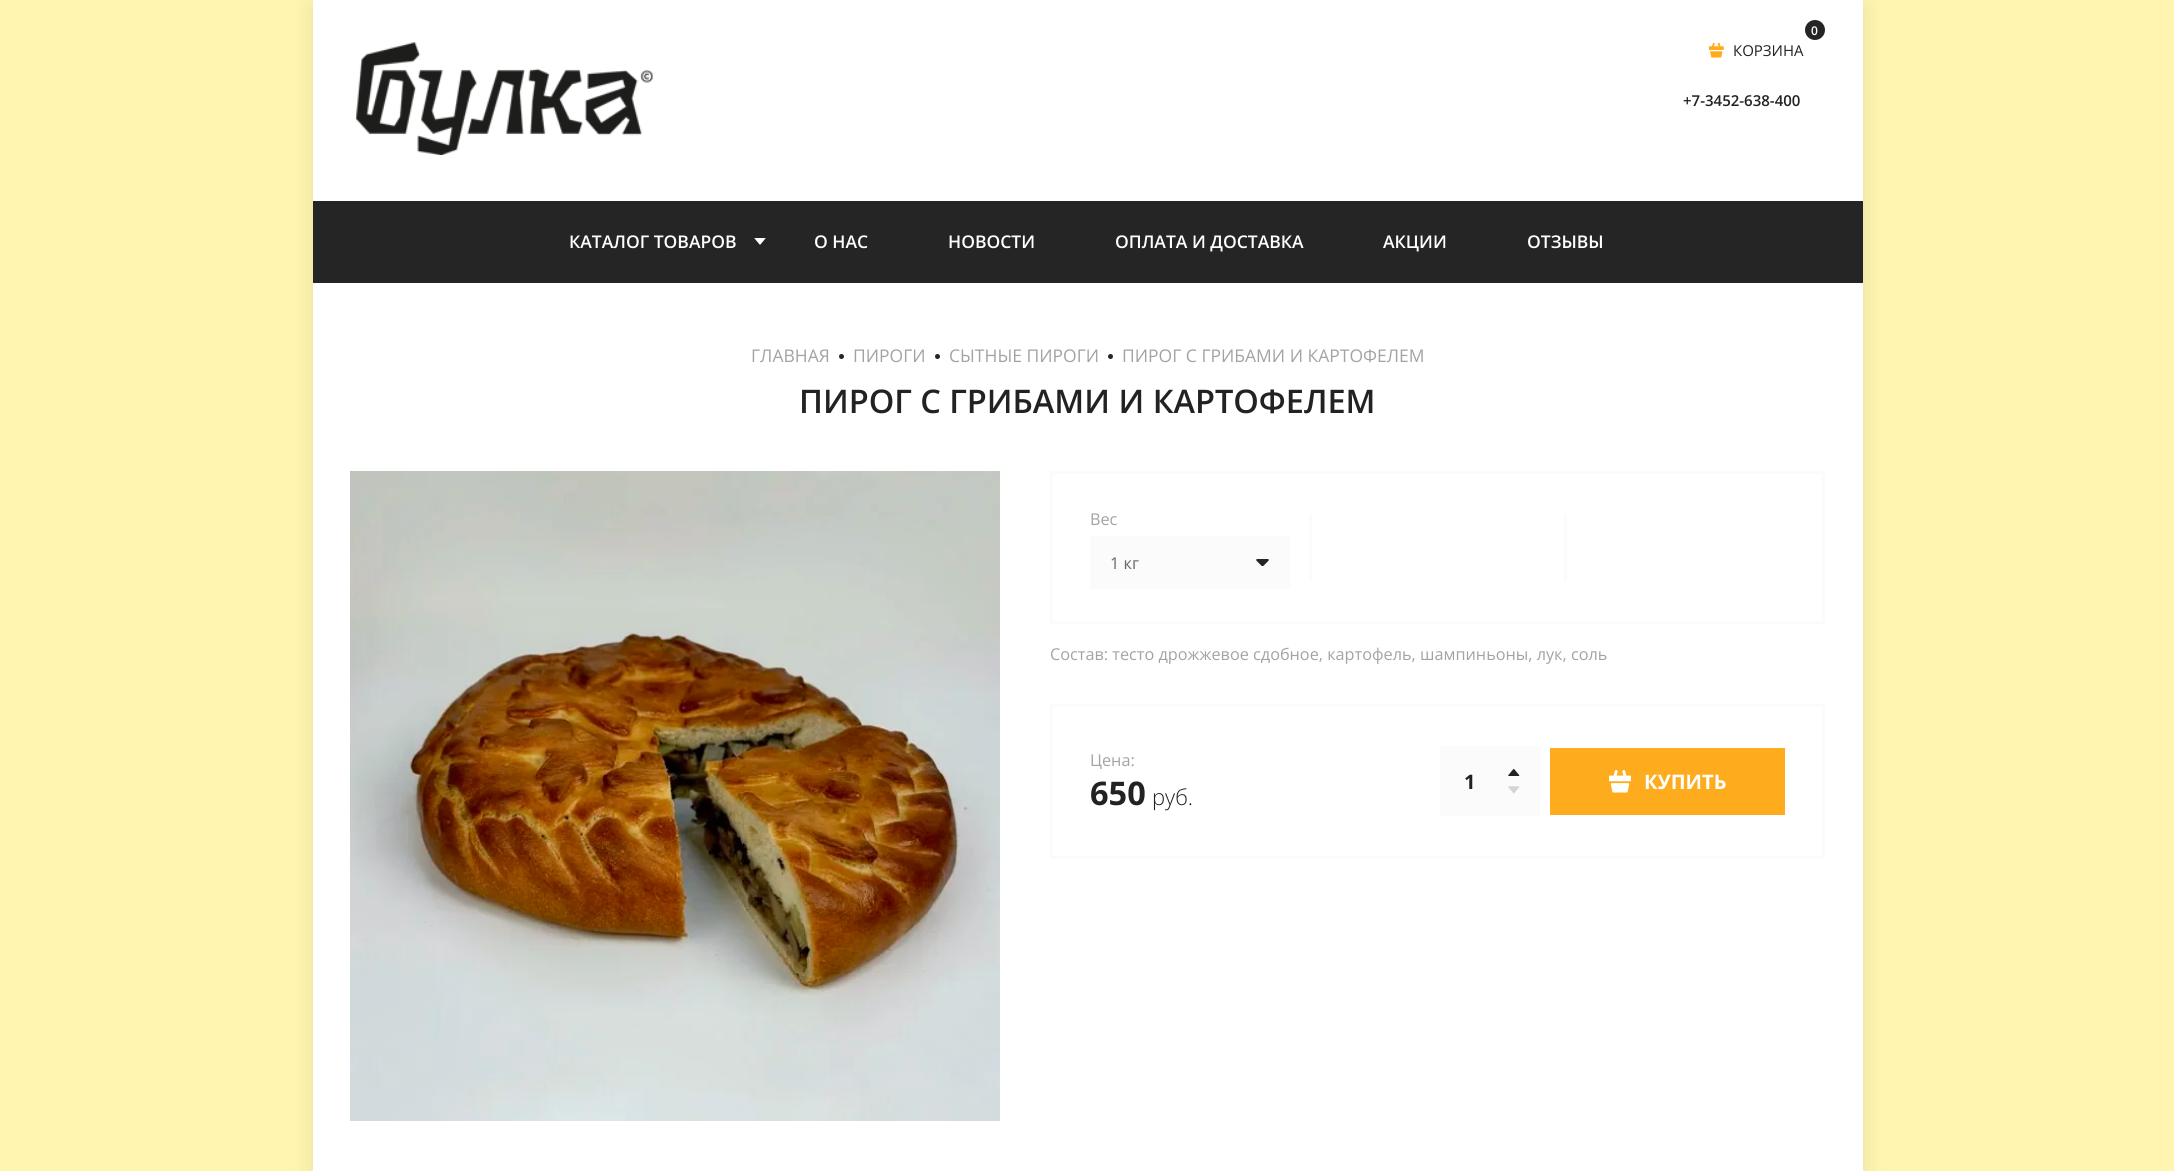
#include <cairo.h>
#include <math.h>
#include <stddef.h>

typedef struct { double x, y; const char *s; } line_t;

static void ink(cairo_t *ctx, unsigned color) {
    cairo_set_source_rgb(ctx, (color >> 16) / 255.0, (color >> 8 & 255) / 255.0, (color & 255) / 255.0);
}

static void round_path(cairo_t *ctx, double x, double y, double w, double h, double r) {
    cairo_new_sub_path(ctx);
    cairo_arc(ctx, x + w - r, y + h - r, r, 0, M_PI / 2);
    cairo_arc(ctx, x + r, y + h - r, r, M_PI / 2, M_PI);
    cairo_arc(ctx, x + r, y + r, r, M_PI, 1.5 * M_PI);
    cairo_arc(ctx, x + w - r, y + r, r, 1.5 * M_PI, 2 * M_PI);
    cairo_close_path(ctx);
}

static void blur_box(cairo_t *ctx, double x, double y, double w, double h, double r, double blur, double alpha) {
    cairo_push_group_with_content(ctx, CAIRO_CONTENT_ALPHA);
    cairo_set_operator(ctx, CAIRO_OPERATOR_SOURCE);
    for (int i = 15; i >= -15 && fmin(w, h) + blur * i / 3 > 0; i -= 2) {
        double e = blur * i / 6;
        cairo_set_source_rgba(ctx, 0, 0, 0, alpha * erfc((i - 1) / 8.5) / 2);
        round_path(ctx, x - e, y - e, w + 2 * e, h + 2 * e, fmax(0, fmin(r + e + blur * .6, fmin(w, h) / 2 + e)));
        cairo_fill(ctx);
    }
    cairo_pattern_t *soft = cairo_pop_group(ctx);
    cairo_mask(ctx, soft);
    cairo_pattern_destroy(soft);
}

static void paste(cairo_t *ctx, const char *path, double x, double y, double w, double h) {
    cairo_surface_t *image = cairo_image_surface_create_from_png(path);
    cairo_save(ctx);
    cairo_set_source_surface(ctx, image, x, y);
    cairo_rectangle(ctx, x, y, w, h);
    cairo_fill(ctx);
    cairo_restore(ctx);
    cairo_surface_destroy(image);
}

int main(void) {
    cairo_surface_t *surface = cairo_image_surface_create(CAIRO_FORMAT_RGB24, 2174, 1171);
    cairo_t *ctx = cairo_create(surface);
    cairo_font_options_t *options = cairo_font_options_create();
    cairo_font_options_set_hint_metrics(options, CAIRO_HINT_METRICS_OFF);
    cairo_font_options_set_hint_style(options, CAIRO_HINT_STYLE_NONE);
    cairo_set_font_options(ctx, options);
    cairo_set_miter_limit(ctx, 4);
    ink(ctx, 0xFFF5B0);
    cairo_paint(ctx);
    ink(ctx, 0x000000);
    blur_box(ctx, 313, 5, 1550, 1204, 0, 12.5, 0.08);
    ink(ctx, 0xFFFFFF);
    cairo_rectangle(ctx, 313, 0, 1550, 1171);
    cairo_fill(ctx);
    paste(ctx, "media/1.png", 356, 42, 297, 113);
    paste(ctx, "media/2.png", 1709, 43, 15, 15);
    ink(ctx, 0x252525);
    cairo_arc(ctx, 1815, 30, 10, 0, 2 * M_PI);
    cairo_fill(ctx);
    cairo_select_font_face(ctx, "Open Sans SemiBold", CAIRO_FONT_SLANT_NORMAL, CAIRO_FONT_WEIGHT_NORMAL);
    cairo_set_font_size(ctx, 12);
    ink(ctx, 0xFFFFFF);
    cairo_move_to(ctx, 1811, 35);
    cairo_show_text(ctx, "0");
    cairo_select_font_face(ctx, "Open Sans", CAIRO_FONT_SLANT_NORMAL, CAIRO_FONT_WEIGHT_NORMAL);
    cairo_set_font_size(ctx, 15);
    ink(ctx, 0x222222);
    cairo_move_to(ctx, 1733, 56);
    cairo_show_text(ctx, "КОРЗИНА");
    cairo_select_font_face(ctx, "Open Sans SemiBold", CAIRO_FONT_SLANT_NORMAL, CAIRO_FONT_WEIGHT_NORMAL);
    cairo_move_to(ctx, 1683, 106);
    cairo_show_text(ctx, "+7-3452-638-400");
    ink(ctx, 0x252525);
    cairo_rectangle(ctx, 313, 201, 1550, 82);
    cairo_fill(ctx);
    paste(ctx, "media/3.png", 754, 238, 12, 7);
    cairo_set_font_size(ctx, 17.5);
    ink(ctx, 0xFFFFFF);
    {
        static const line_t items[] = {
            {569, 248, "КАТАЛОГ ТОВАРОВ"},
            {814, 248, "О НАС"},
            {948, 248, "НОВОСТИ"},
            {1115, 248, "ОПЛАТА И ДОСТАВКА"},
            {1383, 248, "АКЦИИ"},
            {1527, 248, "ОТЗЫВЫ"},
        };
        for (size_t i = 0; i < sizeof items / sizeof *items; i++) {
            cairo_move_to(ctx, items[i].x, items[i].y);
            cairo_show_text(ctx, items[i].s);
        }
    }
    cairo_select_font_face(ctx, "Open Sans", CAIRO_FONT_SLANT_NORMAL, CAIRO_FONT_WEIGHT_NORMAL);
    ink(ctx, 0xA3A3A3);
    cairo_move_to(ctx, 751, 362);
    cairo_show_text(ctx, "ГЛАВНАЯ");
    ink(ctx, 0x252525);
    cairo_new_path(ctx);
    cairo_arc(ctx, 841.5, 356.5, 2.5, 0, 2 * M_PI);
    cairo_fill(ctx);
    ink(ctx, 0xA3A3A3);
    cairo_move_to(ctx, 853, 362);
    cairo_show_text(ctx, "ПИРОГИ");
    ink(ctx, 0x252525);
    cairo_new_path(ctx);
    cairo_arc(ctx, 937.5, 356.5, 2.5, 0, 2 * M_PI);
    cairo_fill(ctx);
    ink(ctx, 0xA3A3A3);
    cairo_move_to(ctx, 949, 362);
    cairo_show_text(ctx, "СЫТНЫЕ ПИРОГИ");
    ink(ctx, 0x252525);
    cairo_new_path(ctx);
    cairo_arc(ctx, 1110.5, 356.5, 2.5, 0, 2 * M_PI);
    cairo_fill(ctx);
    ink(ctx, 0xA3A3A3);
    cairo_move_to(ctx, 1122, 362);
    cairo_show_text(ctx, "ПИРОГ С ГРИБАМИ И КАРТОФЕЛЕМ");
    cairo_select_font_face(ctx, "Open Sans SemiBold", CAIRO_FONT_SLANT_NORMAL, CAIRO_FONT_WEIGHT_NORMAL);
    cairo_set_font_size(ctx, 32.5);
    ink(ctx, 0x222222);
    cairo_move_to(ctx, 799, 413);
    cairo_show_text(ctx, "ПИРОГ С ГРИБАМИ И КАРТОФЕЛЕМ");
    paste(ctx, "media/4.png", 350, 471, 650, 650);
    cairo_rectangle(ctx, 1051.5, 472.5, 772, 150);
    ink(ctx, 0xFBFBFB);
    cairo_set_line_width(ctx, 3);
    cairo_stroke(ctx);
    cairo_select_font_face(ctx, "Open Sans", CAIRO_FONT_SLANT_NORMAL, CAIRO_FONT_WEIGHT_NORMAL);
    cairo_set_font_size(ctx, 16.25);
    ink(ctx, 0xA3A3A3);
    cairo_move_to(ctx, 1090, 525);
    cairo_show_text(ctx, "Вес");
    ink(ctx, 0xFBFBFB);
    cairo_rectangle(ctx, 1090, 536, 200, 53);
    cairo_fill(ctx);
    paste(ctx, "media/5.png", 1256, 559, 13, 7);
    ink(ctx, 0x666666);
    cairo_move_to(ctx, 1110, 569);
    cairo_show_text(ctx, "1 кг");
    ink(ctx, 0xFBFBFB);
    cairo_rectangle(ctx, 1309, 514, 3, 67);
    cairo_fill(ctx);
    cairo_rectangle(ctx, 1564, 514, 3, 67);
    cairo_fill(ctx);
    ink(ctx, 0xA3A3A3);
    cairo_move_to(ctx, 1050, 660);
    cairo_show_text(ctx, "Состав: тесто дрожжевое сдобное, картофель, шампиньоны, лук, соль");
    cairo_rectangle(ctx, 1051.5, 705.5, 772, 152);
    ink(ctx, 0xFBFBFB);
    cairo_stroke(ctx);
    ink(ctx, 0xA3A3A3);
    cairo_move_to(ctx, 1090, 766);
    cairo_show_text(ctx, "Цена:");
    cairo_select_font_face(ctx, "Open Sans", CAIRO_FONT_SLANT_NORMAL, CAIRO_FONT_WEIGHT_BOLD);
    cairo_set_font_size(ctx, 32.5);
    ink(ctx, 0x222222);
    cairo_move_to(ctx, 1090, 805);
    cairo_show_text(ctx, "650");
    cairo_select_font_face(ctx, "Open Sans Light", CAIRO_FONT_SLANT_NORMAL, CAIRO_FONT_WEIGHT_NORMAL);
    cairo_set_font_size(ctx, 22);
    cairo_move_to(ctx, 1152, 805);
    cairo_show_text(ctx, "руб.");
    ink(ctx, 0xFBFBFB);
    cairo_rectangle(ctx, 1440, 746, 100, 70);
    cairo_fill(ctx);
    paste(ctx, "media/6.png", 1508, 769, 12, 7);
    cairo_select_font_face(ctx, "Open Sans", CAIRO_FONT_SLANT_NORMAL, CAIRO_FONT_WEIGHT_BOLD);
    cairo_set_font_size(ctx, 20);
    ink(ctx, 0x222222);
    cairo_move_to(ctx, 1464, 789);
    cairo_show_text(ctx, "1");
    paste(ctx, "media/7.png", 1508, 786, 12, 8);
    ink(ctx, 0xFFAB1E);
    cairo_rectangle(ctx, 1550, 748, 235, 67);
    cairo_fill(ctx);
    paste(ctx, "media/8.png", 1609, 770, 22, 23);
    ink(ctx, 0xFFFFFF);
    cairo_move_to(ctx, 1644, 789);
    cairo_show_text(ctx, "КУПИТЬ");
    cairo_surface_write_to_png(surface, "image.png");
    cairo_font_options_destroy(options);
    cairo_destroy(ctx);
    cairo_surface_destroy(surface);
    return 0;
}
